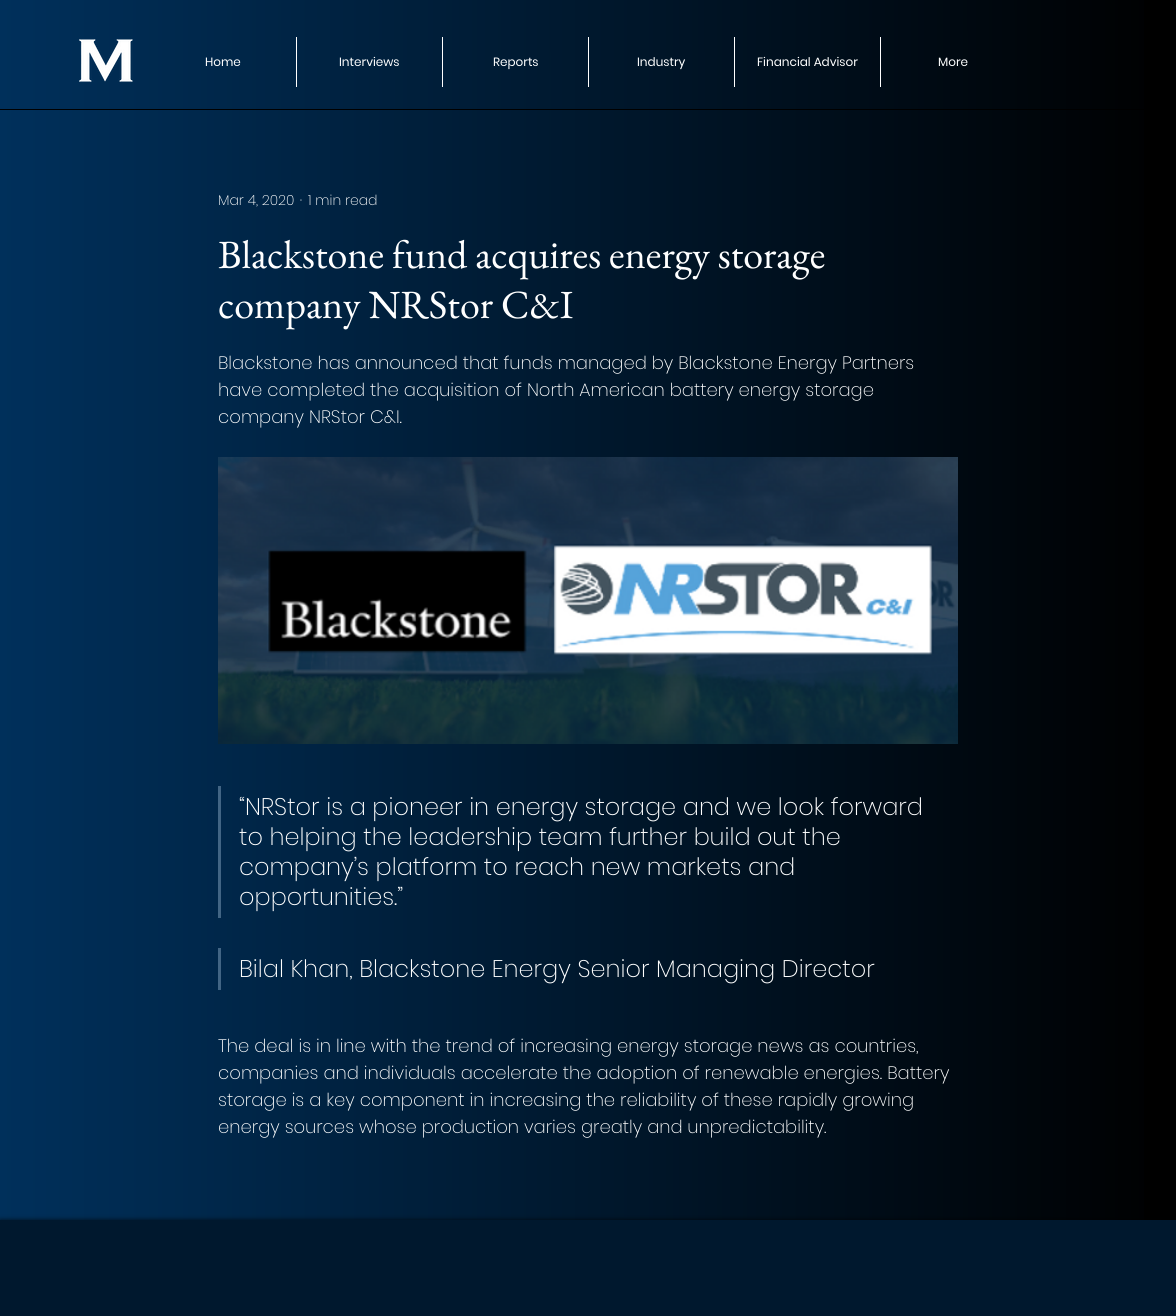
#include <cairo.h>
#include <math.h>
#include <stddef.h>

typedef struct { double x, y; const char *s; } line_t;

static void ink(cairo_t *ctx, unsigned color) {
    cairo_set_source_rgb(ctx, (color >> 16) / 255.0, (color >> 8 & 255) / 255.0, (color & 255) / 255.0);
}

static void round_path(cairo_t *ctx, double x, double y, double w, double h, double r) {
    cairo_new_sub_path(ctx);
    cairo_arc(ctx, x + w - r, y + h - r, r, 0, M_PI / 2);
    cairo_arc(ctx, x + r, y + h - r, r, M_PI / 2, M_PI);
    cairo_arc(ctx, x + r, y + r, r, M_PI, 1.5 * M_PI);
    cairo_arc(ctx, x + w - r, y + r, r, 1.5 * M_PI, 2 * M_PI);
    cairo_close_path(ctx);
}

static void blur_box(cairo_t *ctx, double x, double y, double w, double h, double r, double blur, double alpha) {
    cairo_push_group_with_content(ctx, CAIRO_CONTENT_ALPHA);
    cairo_set_operator(ctx, CAIRO_OPERATOR_SOURCE);
    for (int i = 15; i >= -15 && fmin(w, h) + blur * i / 3 > 0; i -= 2) {
        double e = blur * i / 6;
        cairo_set_source_rgba(ctx, 0, 0, 0, alpha * erfc((i - 1) / 8.5) / 2);
        round_path(ctx, x - e, y - e, w + 2 * e, h + 2 * e, fmax(0, fmin(r + e + blur * .6, fmin(w, h) / 2 + e)));
        cairo_fill(ctx);
    }
    cairo_pattern_t *soft = cairo_pop_group(ctx);
    cairo_mask(ctx, soft);
    cairo_pattern_destroy(soft);
}

static void paste(cairo_t *ctx, const char *path, double x, double y, double w, double h) {
    cairo_surface_t *image = cairo_image_surface_create_from_png(path);
    cairo_save(ctx);
    cairo_set_source_surface(ctx, image, x, y);
    cairo_rectangle(ctx, x, y, w, h);
    cairo_fill(ctx);
    cairo_restore(ctx);
    cairo_surface_destroy(image);
}

int main(void) {
    cairo_surface_t *surface = cairo_image_surface_create(CAIRO_FORMAT_RGB24, 1176, 1316);
    cairo_t *ctx = cairo_create(surface);
    cairo_font_options_t *options = cairo_font_options_create();
    cairo_font_options_set_hint_metrics(options, CAIRO_HINT_METRICS_OFF);
    cairo_font_options_set_hint_style(options, CAIRO_HINT_STYLE_NONE);
    cairo_set_font_options(ctx, options);
    cairo_set_miter_limit(ctx, 4);
    cairo_pattern_t *gradient;
    ink(ctx, 0x000000);
    cairo_paint(ctx);
    gradient = cairo_pattern_create_linear(0, 55, 1176, 54);
    cairo_pattern_add_color_stop_rgba(gradient, 0, 0, 0.188, 0.357, 1);
    cairo_pattern_add_color_stop_rgba(gradient, 1, 0, 0, 0, 1);
    cairo_set_source(ctx, gradient);
    cairo_pattern_destroy(gradient);
    cairo_rectangle(ctx, 0, 0, 1144, 109);
    cairo_fill(ctx);
    paste(ctx, "media/1.png", 79, 39, 54, 43);
    cairo_select_font_face(ctx, "Poppins", CAIRO_FONT_SLANT_NORMAL, CAIRO_FONT_WEIGHT_NORMAL);
    cairo_set_font_size(ctx, 12);
    ink(ctx, 0xFFFFFF);
    cairo_move_to(ctx, 205, 66);
    cairo_show_text(ctx, "Home");
    cairo_rectangle(ctx, 296, 37, 1, 50);
    cairo_fill(ctx);
    cairo_move_to(ctx, 339, 66);
    cairo_show_text(ctx, "Interviews");
    cairo_rectangle(ctx, 442, 37, 1, 50);
    cairo_fill(ctx);
    cairo_move_to(ctx, 493, 66);
    cairo_show_text(ctx, "Reports");
    cairo_rectangle(ctx, 588, 37, 1, 50);
    cairo_fill(ctx);
    cairo_move_to(ctx, 637, 66);
    cairo_show_text(ctx, "Industry");
    cairo_rectangle(ctx, 734, 37, 1, 50);
    cairo_fill(ctx);
    cairo_move_to(ctx, 757, 66);
    cairo_show_text(ctx, "Financial Advisor");
    cairo_rectangle(ctx, 880, 37, 1, 50);
    cairo_fill(ctx);
    cairo_move_to(ctx, 938, 66);
    cairo_show_text(ctx, "More");
    gradient = cairo_pattern_create_linear(0, 665, 1176, 665);
    cairo_pattern_add_color_stop_rgba(gradient, 0, 0, 0.188, 0.357, 1);
    cairo_pattern_add_color_stop_rgba(gradient, 1, 0, 0, 0, 1);
    cairo_set_source(ctx, gradient);
    cairo_pattern_destroy(gradient);
    cairo_rectangle(ctx, 0, 110, 1144, 1110);
    cairo_fill(ctx);
    cairo_select_font_face(ctx, "Poppins ExtraLight", CAIRO_FONT_SLANT_NORMAL, CAIRO_FONT_WEIGHT_NORMAL);
    cairo_set_font_size(ctx, 14);
    ink(ctx, 0xFFFFFF);
    {
        static const line_t items[] = {
            {218, 205, "Mar 4, 2020"},
            {300, 205, "·"},
            {308, 205, "1 min read"},
        };
        for (size_t i = 0; i < sizeof items / sizeof *items; i++) {
            cairo_move_to(ctx, items[i].x, items[i].y);
            cairo_show_text(ctx, items[i].s);
        }
    }
    cairo_select_font_face(ctx, "EB Garamond", CAIRO_FONT_SLANT_NORMAL, CAIRO_FONT_WEIGHT_NORMAL);
    cairo_set_font_size(ctx, 40);
    cairo_move_to(ctx, 218, 268);
    cairo_show_text(ctx, "Blackstone fund acquires energy storage");
    cairo_move_to(ctx, 218, 318);
    cairo_show_text(ctx, "company NRStor C&I");
    cairo_select_font_face(ctx, "Poppins ExtraLight", CAIRO_FONT_SLANT_NORMAL, CAIRO_FONT_WEIGHT_NORMAL);
    cairo_set_font_size(ctx, 18);
    {
        static const line_t items[] = {
            {218, 369, "Blackstone has announced that funds managed by Blackstone Energy Partners"},
            {218, 396, "have completed the acquisition of North American battery energy storage"},
            {218, 423, "company NRStor C&I."},
        };
        for (size_t i = 0; i < sizeof items / sizeof *items; i++) {
            cairo_move_to(ctx, items[i].x, items[i].y);
            cairo_show_text(ctx, items[i].s);
        }
    }
    paste(ctx, "media/2.png", 218, 457, 740, 287);
    ink(ctx, 0x426584);
    cairo_rectangle(ctx, 218, 786, 3, 132);
    cairo_fill(ctx);
    cairo_set_font_size(ctx, 24);
    ink(ctx, 0xFFFFFF);
    {
        static const line_t items[] = {
            {239, 815, "“NRStor is a pioneer in energy storage and we look forward"},
            {239, 845, "to helping the leadership team further build out the"},
            {239, 875, "company’s platform to reach new markets and"},
            {239, 905, "opportunities.”"},
        };
        for (size_t i = 0; i < sizeof items / sizeof *items; i++) {
            cairo_move_to(ctx, items[i].x, items[i].y);
            cairo_show_text(ctx, items[i].s);
        }
    }
    ink(ctx, 0x426584);
    cairo_rectangle(ctx, 218, 948, 3, 42);
    cairo_fill(ctx);
    ink(ctx, 0xFFFFFF);
    cairo_move_to(ctx, 239, 977);
    cairo_show_text(ctx, "Bilal Khan, Blackstone Energy Senior Managing Director");
    cairo_set_font_size(ctx, 18);
    {
        static const line_t items[] = {
            {218, 1052, "The deal is in line with the trend of increasing energy storage news as countries,"},
            {218, 1079, "companies and individuals accelerate the adoption of renewable energies. Battery"},
            {218, 1106, "storage is a key component in increasing the reliability of these rapidly growing"},
            {218, 1133, "energy sources whose production varies greatly and unpredictability."},
        };
        for (size_t i = 0; i < sizeof items / sizeof *items; i++) {
            cairo_move_to(ctx, items[i].x, items[i].y);
            cairo_show_text(ctx, items[i].s);
        }
    }
    ink(ctx, 0x000000);
    blur_box(ctx, 0, 1220, 1176, 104, 0, 2.5, 0.7);
    ink(ctx, 0x00182E);
    cairo_rectangle(ctx, 0, 1220, 1176, 96);
    cairo_fill(ctx);
    cairo_surface_write_to_png(surface, "image.png");
    cairo_font_options_destroy(options);
    cairo_destroy(ctx);
    cairo_surface_destroy(surface);
    return 0;
}
